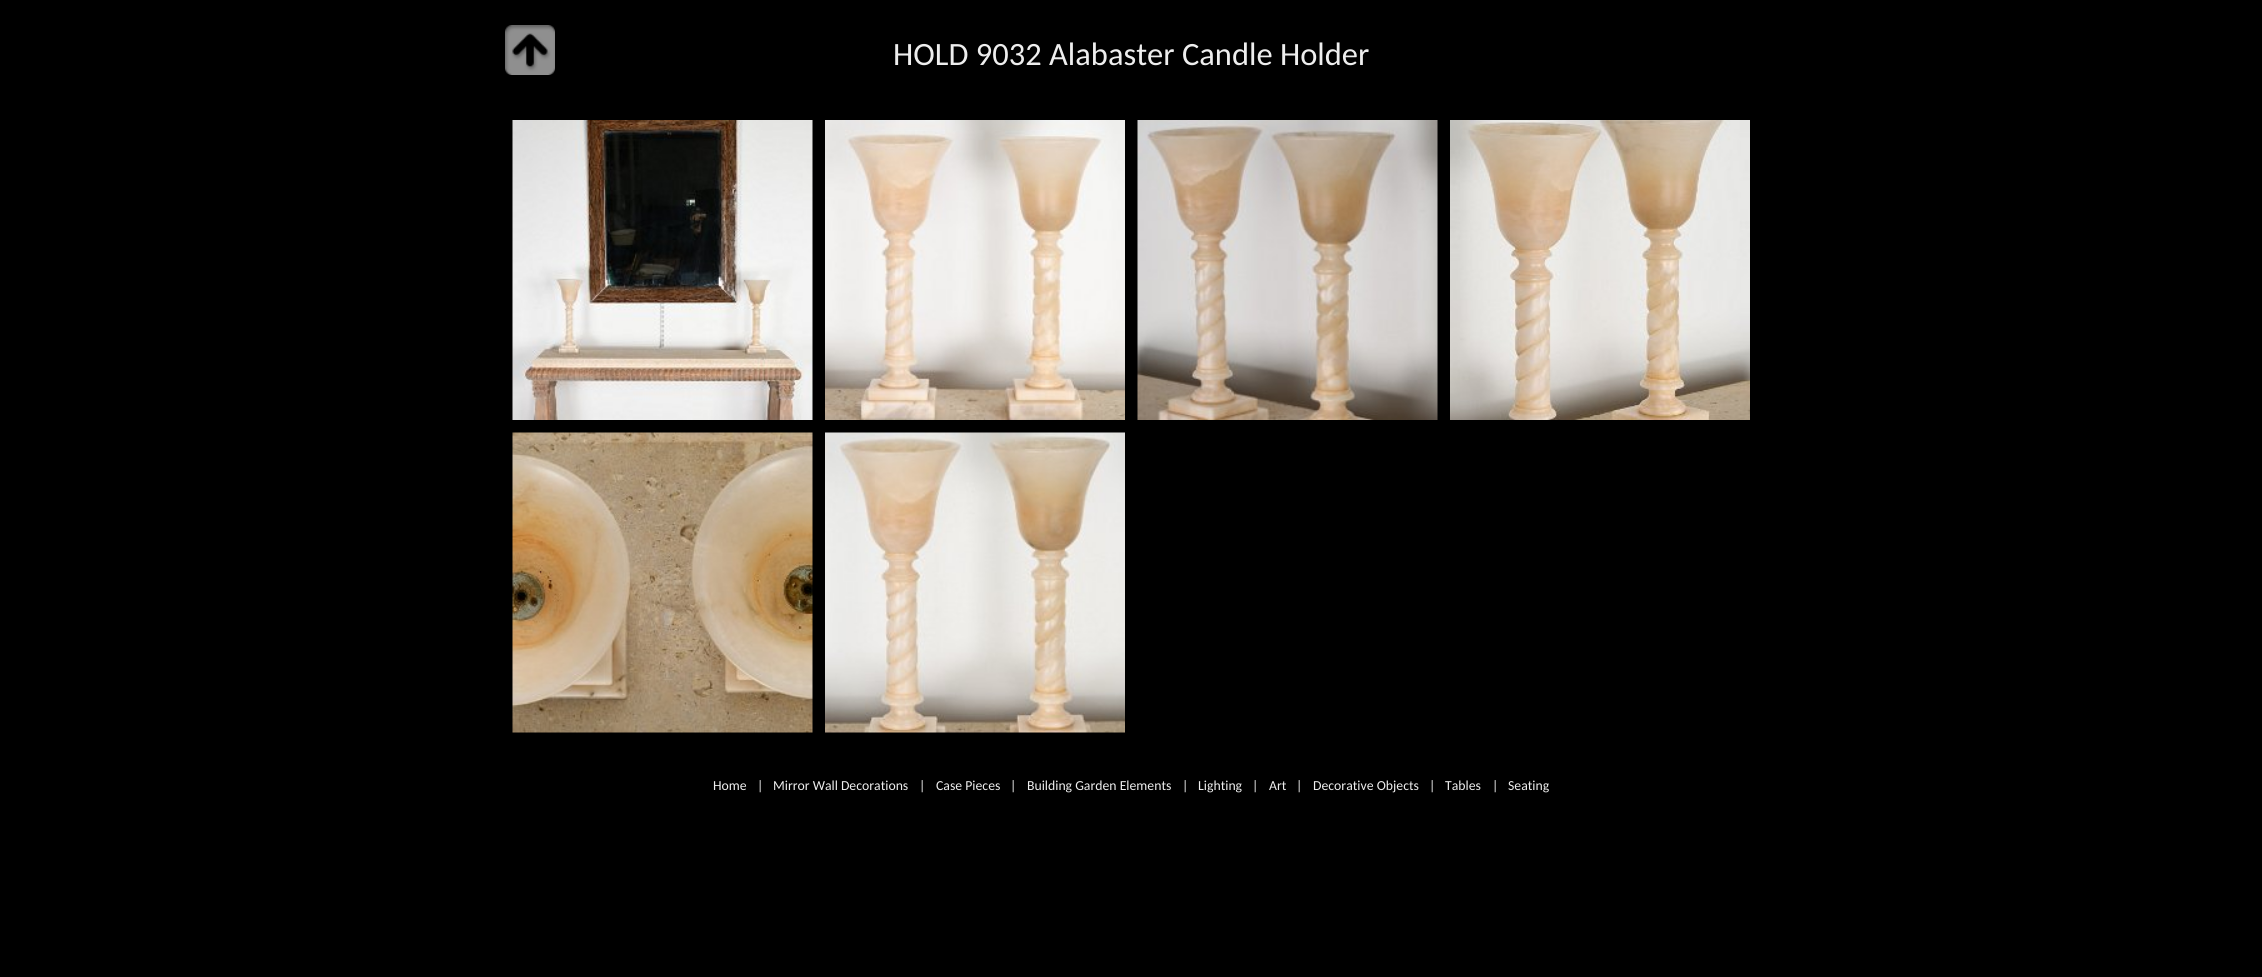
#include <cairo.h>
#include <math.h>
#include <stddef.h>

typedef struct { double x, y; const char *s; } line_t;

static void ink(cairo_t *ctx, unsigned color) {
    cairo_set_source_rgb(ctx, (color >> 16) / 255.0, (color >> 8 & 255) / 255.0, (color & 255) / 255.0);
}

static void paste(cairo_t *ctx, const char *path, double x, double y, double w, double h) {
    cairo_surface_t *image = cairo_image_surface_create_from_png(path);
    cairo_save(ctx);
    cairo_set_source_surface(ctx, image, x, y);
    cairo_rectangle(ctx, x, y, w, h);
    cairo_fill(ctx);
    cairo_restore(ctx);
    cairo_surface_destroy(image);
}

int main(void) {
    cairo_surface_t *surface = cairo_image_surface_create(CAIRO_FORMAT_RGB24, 2262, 977);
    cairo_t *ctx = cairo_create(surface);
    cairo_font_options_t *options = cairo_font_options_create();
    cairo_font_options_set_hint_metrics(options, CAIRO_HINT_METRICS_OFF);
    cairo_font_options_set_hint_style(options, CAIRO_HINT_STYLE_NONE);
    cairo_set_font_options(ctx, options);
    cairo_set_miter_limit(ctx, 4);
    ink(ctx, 0x000000);
    cairo_paint(ctx);
    paste(ctx, "media/1.png", 505, 25, 50, 50);
    cairo_select_font_face(ctx, "Carlito", CAIRO_FONT_SLANT_NORMAL, CAIRO_FONT_WEIGHT_NORMAL);
    cairo_set_font_size(ctx, 32.5);
    ink(ctx, 0xEEEEEE);
    cairo_move_to(ctx, 893, 65);
    cairo_show_text(ctx, "HOLD 9032 Alabaster Candle Holder");
    paste(ctx, "media/2.png", 512, 120, 301, 300);
    paste(ctx, "media/3.png", 825, 120, 300, 300);
    paste(ctx, "media/4.png", 1137, 120, 301, 300);
    paste(ctx, "media/5.png", 1450, 120, 300, 300);
    paste(ctx, "media/6.png", 512, 432, 301, 301);
    paste(ctx, "media/7.png", 825, 432, 300, 301);
    cairo_set_font_size(ctx, 13.75);
    {
        static const line_t items[] = {
            {713, 790, "Home"},
            {757, 790, "|"},
            {773, 790, "Mirror Wall Decorations"},
            {919, 790, "|"},
            {936, 790, "Case Pieces"},
            {1010, 790, "|"},
            {1027, 790, "Building Garden Elements"},
            {1182, 790, "|"},
            {1198, 790, "Lighting"},
            {1252, 790, "|"},
            {1269, 790, "Art"},
            {1296, 790, "|"},
            {1313, 790, "Decorative Objects"},
            {1429, 790, "|"},
            {1445, 790, "Tables"},
            {1492, 790, "|"},
            {1508, 790, "Seating"},
        };
        for (size_t i = 0; i < sizeof items / sizeof *items; i++) {
            cairo_move_to(ctx, items[i].x, items[i].y);
            cairo_show_text(ctx, items[i].s);
        }
    }
    cairo_surface_write_to_png(surface, "image.png");
    cairo_font_options_destroy(options);
    cairo_destroy(ctx);
    cairo_surface_destroy(surface);
    return 0;
}
